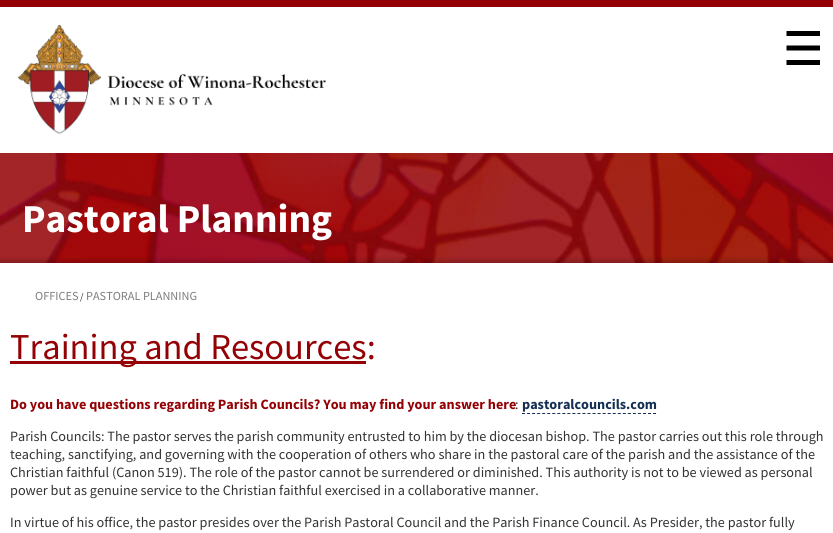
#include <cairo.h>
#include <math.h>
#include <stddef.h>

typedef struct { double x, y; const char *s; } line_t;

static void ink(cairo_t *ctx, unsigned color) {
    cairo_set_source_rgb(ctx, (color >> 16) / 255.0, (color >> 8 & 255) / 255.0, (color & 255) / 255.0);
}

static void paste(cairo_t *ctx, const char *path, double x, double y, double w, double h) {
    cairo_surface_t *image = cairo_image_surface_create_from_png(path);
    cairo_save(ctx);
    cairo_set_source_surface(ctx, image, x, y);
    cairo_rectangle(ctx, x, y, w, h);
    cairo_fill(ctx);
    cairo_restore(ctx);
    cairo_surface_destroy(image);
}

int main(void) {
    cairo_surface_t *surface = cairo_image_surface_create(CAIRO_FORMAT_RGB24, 833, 533);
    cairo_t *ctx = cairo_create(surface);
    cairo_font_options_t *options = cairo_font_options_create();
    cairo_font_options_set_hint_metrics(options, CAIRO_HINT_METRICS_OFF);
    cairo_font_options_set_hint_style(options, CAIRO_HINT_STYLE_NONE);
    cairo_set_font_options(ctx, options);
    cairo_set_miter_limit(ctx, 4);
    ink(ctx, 0xFFFFFF);
    cairo_paint(ctx);
    ink(ctx, 0x930105);
    cairo_rectangle(ctx, 0, 0, 833, 7);
    cairo_fill(ctx);
    paste(ctx, "media/1.png", 17, 24, 309, 111);
    paste(ctx, "media/2.png", 786, 31, 34, 34);
    paste(ctx, "media/3.png", 0, 153, 833, 110);
    cairo_select_font_face(ctx, "Source Sans Pro", CAIRO_FONT_SLANT_NORMAL, CAIRO_FONT_WEIGHT_BOLD);
    cairo_set_font_size(ctx, 39.5);
    ink(ctx, 0xFFFFFF);
    cairo_move_to(ctx, 22, 232);
    cairo_show_text(ctx, "Pastoral Planning");
    cairo_select_font_face(ctx, "Source Sans Pro", CAIRO_FONT_SLANT_NORMAL, CAIRO_FONT_WEIGHT_NORMAL);
    cairo_set_font_size(ctx, 12.25);
    ink(ctx, 0x7D7D7D);
    cairo_move_to(ctx, 35, 300);
    cairo_show_text(ctx, "OFFICES");
    cairo_set_font_size(ctx, 10);
    ink(ctx, 0x323232);
    cairo_move_to(ctx, 80, 300);
    cairo_show_text(ctx, "/");
    cairo_set_font_size(ctx, 12.25);
    ink(ctx, 0x7D7D7D);
    cairo_move_to(ctx, 86, 300);
    cairo_show_text(ctx, "PASTORAL PLANNING");
    ink(ctx, 0x930105);
    cairo_rectangle(ctx, 10, 361, 356, 3);
    cairo_fill(ctx);
    cairo_set_font_size(ctx, 36.5);
    cairo_move_to(ctx, 10, 359);
    cairo_show_text(ctx, "Training and Resources:");
    cairo_select_font_face(ctx, "Source Sans Pro", CAIRO_FONT_SLANT_NORMAL, CAIRO_FONT_WEIGHT_BOLD);
    cairo_set_font_size(ctx, 14.2);
    cairo_move_to(ctx, 10, 409);
    cairo_show_text(ctx, "Do you have questions regarding Parish Councils? You may find your answer here");
    cairo_select_font_face(ctx, "Source Sans Pro", CAIRO_FONT_SLANT_NORMAL, CAIRO_FONT_WEIGHT_NORMAL);
    ink(ctx, 0x323232);
    cairo_move_to(ctx, 515, 409);
    cairo_show_text(ctx, ":");
    cairo_select_font_face(ctx, "Source Sans Pro", CAIRO_FONT_SLANT_NORMAL, CAIRO_FONT_WEIGHT_BOLD);
    ink(ctx, 0x152F52);
    cairo_move_to(ctx, 522, 409);
    cairo_show_text(ctx, "pastoralcouncils.com");
    cairo_new_path(ctx);
    cairo_move_to(ctx, 522, 413.5);
    cairo_line_to(ctx, 656, 413.5);
    cairo_set_line_width(ctx, 1);
    cairo_set_dash(ctx, (double[]){3, 2.04}, 2, 0);
    cairo_stroke(ctx);
    cairo_select_font_face(ctx, "Source Sans Pro", CAIRO_FONT_SLANT_NORMAL, CAIRO_FONT_WEIGHT_NORMAL);
    ink(ctx, 0x323232);
    {
        static const line_t items[] = {
            {10, 441, "Parish Councils: The pastor serves the parish community entrusted to him by the diocesan bishop. The pastor carries out this role through"},
            {10, 459, "teaching, sanctifying, and governing with the cooperation of others who share in the pastoral care of the parish and the assistance of the"},
            {10, 477, "Christian faithful (Canon 519). The role of the pastor cannot be surrendered or diminished. This authority is not to be viewed as personal"},
            {10, 495, "power but as genuine service to the Christian faithful exercised in a collaborative manner."},
            {10, 527, "In virtue of his office, the pastor presides over the Parish Pastoral Council and the Parish Finance Council. As Presider, the pastor fully"},
        };
        for (size_t i = 0; i < sizeof items / sizeof *items; i++) {
            cairo_move_to(ctx, items[i].x, items[i].y);
            cairo_show_text(ctx, items[i].s);
        }
    }
    cairo_surface_write_to_png(surface, "image.png");
    cairo_font_options_destroy(options);
    cairo_destroy(ctx);
    cairo_surface_destroy(surface);
    return 0;
}
